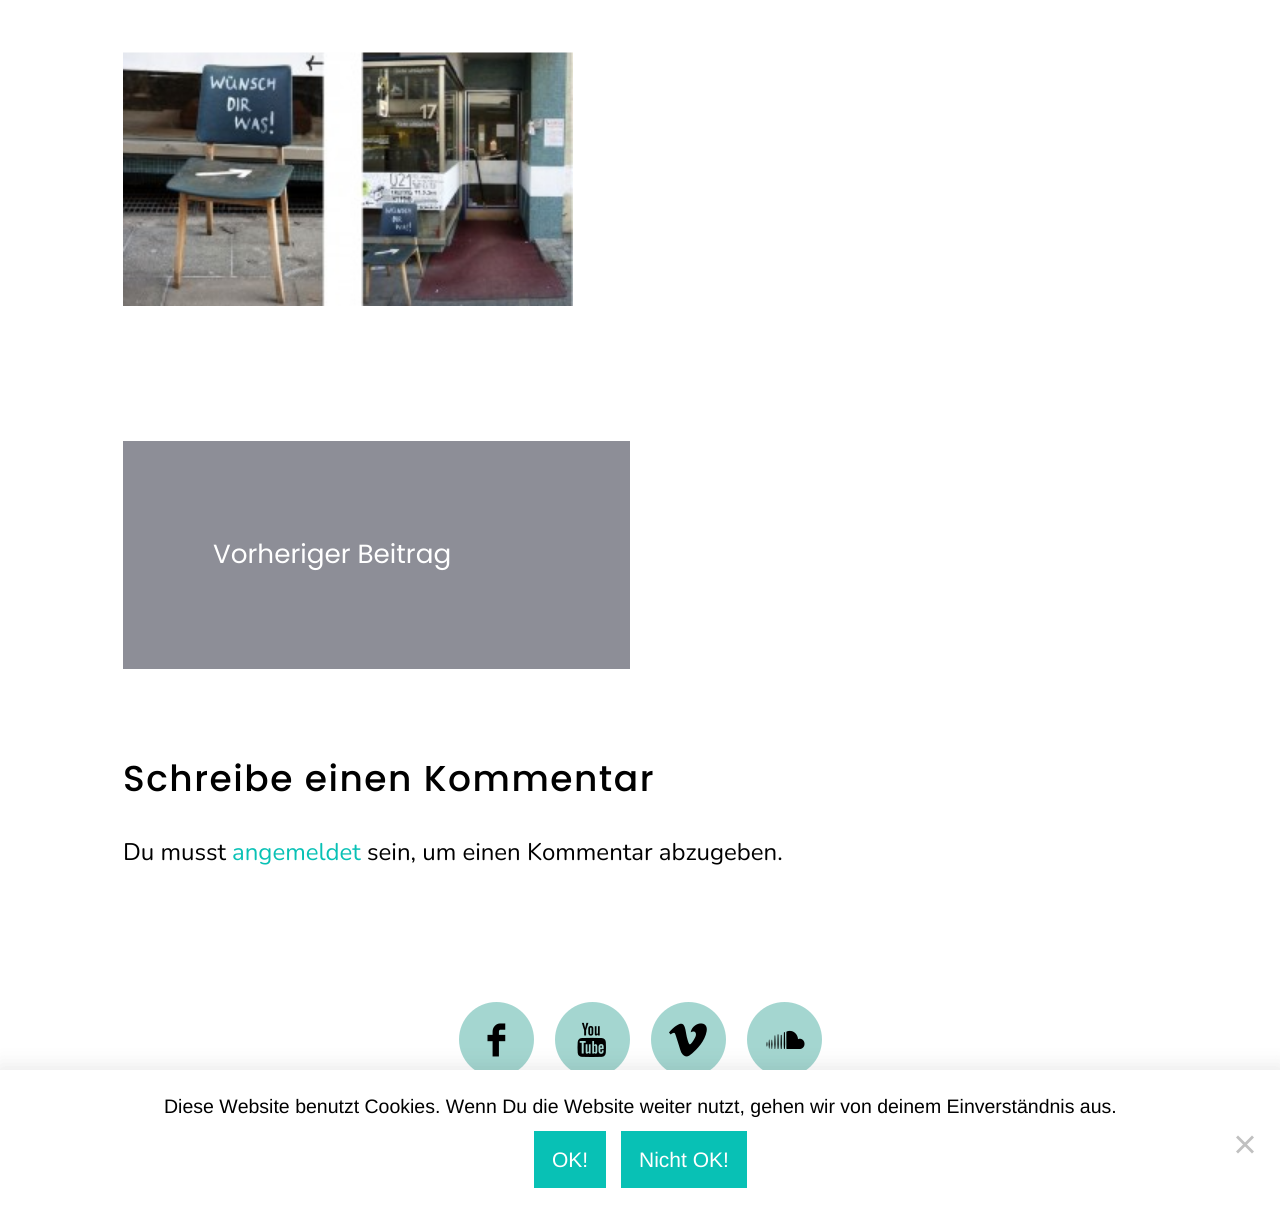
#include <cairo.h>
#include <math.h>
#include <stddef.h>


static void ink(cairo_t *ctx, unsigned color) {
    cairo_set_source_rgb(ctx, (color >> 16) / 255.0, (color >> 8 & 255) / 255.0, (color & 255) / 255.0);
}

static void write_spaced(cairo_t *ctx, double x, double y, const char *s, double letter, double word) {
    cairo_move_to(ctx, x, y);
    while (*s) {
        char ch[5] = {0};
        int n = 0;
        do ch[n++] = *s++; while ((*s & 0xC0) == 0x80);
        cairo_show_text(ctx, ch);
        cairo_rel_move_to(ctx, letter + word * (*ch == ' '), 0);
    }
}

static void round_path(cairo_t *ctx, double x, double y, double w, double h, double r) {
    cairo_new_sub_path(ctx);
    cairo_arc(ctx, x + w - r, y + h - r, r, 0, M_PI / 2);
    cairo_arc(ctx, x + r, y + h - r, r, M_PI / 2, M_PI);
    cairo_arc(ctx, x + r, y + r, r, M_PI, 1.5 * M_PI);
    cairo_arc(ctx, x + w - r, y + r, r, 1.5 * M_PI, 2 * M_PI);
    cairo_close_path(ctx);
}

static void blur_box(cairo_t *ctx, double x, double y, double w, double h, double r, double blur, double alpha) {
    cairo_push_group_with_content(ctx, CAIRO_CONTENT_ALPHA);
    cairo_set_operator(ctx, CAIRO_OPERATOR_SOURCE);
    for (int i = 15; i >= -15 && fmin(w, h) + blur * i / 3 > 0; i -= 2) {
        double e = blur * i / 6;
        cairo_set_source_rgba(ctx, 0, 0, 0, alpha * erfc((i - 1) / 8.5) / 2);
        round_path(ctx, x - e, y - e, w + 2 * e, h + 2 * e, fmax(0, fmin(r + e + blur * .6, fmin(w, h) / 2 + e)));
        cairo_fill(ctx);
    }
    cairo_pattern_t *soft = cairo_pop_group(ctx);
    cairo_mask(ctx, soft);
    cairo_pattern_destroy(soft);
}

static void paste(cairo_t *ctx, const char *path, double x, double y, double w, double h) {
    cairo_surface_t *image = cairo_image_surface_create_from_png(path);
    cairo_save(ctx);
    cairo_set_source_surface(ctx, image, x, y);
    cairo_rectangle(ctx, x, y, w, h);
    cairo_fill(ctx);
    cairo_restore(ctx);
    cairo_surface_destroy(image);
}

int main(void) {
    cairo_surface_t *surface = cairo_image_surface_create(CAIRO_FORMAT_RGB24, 1280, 1217);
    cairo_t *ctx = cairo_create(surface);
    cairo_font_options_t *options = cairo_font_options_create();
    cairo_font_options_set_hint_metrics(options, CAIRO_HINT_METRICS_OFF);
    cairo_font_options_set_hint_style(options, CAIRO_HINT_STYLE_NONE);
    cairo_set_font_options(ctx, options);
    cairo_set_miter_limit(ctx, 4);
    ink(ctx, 0xFFFFFF);
    cairo_paint(ctx);
    paste(ctx, "media/1.png", 123, 52, 450, 254);
    ink(ctx, 0x8D8E97);
    cairo_rectangle(ctx, 123, 441, 507, 228);
    cairo_fill(ctx);
    cairo_select_font_face(ctx, "Poppins", CAIRO_FONT_SLANT_NORMAL, CAIRO_FONT_WEIGHT_NORMAL);
    cairo_set_font_size(ctx, 26.25);
    ink(ctx, 0xFFFFFF);
    cairo_move_to(ctx, 213, 563);
    cairo_show_text(ctx, "Vorheriger Beitrag");
    cairo_select_font_face(ctx, "Poppins Medium", CAIRO_FONT_SLANT_NORMAL, CAIRO_FONT_WEIGHT_NORMAL);
    cairo_set_font_size(ctx, 36);
    ink(ctx, 0x000000);
    write_spaced(ctx, 123, 791, "Schreibe einen Kommentar", 1.5, 0);
    cairo_select_font_face(ctx, "Nunito", CAIRO_FONT_SLANT_NORMAL, CAIRO_FONT_WEIGHT_NORMAL);
    cairo_set_font_size(ctx, 24);
    cairo_move_to(ctx, 123, 860);
    cairo_show_text(ctx, "Du musst");
    ink(ctx, 0x08C1B5);
    cairo_move_to(ctx, 232, 860);
    cairo_show_text(ctx, "angemeldet");
    ink(ctx, 0x000000);
    cairo_move_to(ctx, 367, 860);
    cairo_show_text(ctx, "sein, um einen Kommentar abzugeben.");
    ink(ctx, 0xA4D6D0);
    cairo_new_path(ctx);
    cairo_arc(ctx, 496.5, 1039.5, 37.5, 0, 2 * M_PI);
    cairo_fill(ctx);
    paste(ctx, "media/2.png", 487, 1023, 19, 34);
    cairo_arc(ctx, 592.5, 1039.5, 37.5, 0, 2 * M_PI);
    cairo_fill(ctx);
    paste(ctx, "media/3.png", 577, 1022, 29, 35);
    cairo_arc(ctx, 688.5, 1039.5, 37.5, 0, 2 * M_PI);
    cairo_fill(ctx);
    paste(ctx, "media/4.png", 669, 1023, 38, 34);
    cairo_arc(ctx, 784.5, 1039.5, 37.5, 0, 2 * M_PI);
    cairo_fill(ctx);
    paste(ctx, "media/5.png", 766, 1030, 39, 19);
    ink(ctx, 0x000000);
    blur_box(ctx, 0, 1068, 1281, 149, 0, 11, 0.1);
    ink(ctx, 0xFFFFFF);
    cairo_rectangle(ctx, 0, 1070, 1280, 147);
    cairo_fill(ctx);
    cairo_select_font_face(ctx, "Liberation Sans", CAIRO_FONT_SLANT_NORMAL, CAIRO_FONT_WEIGHT_NORMAL);
    cairo_set_font_size(ctx, 19.5);
    ink(ctx, 0x000000);
    cairo_move_to(ctx, 164, 1113);
    cairo_show_text(ctx, "Diese Website benutzt Cookies. Wenn Du die Website weiter nutzt, gehen wir von deinem Einverständnis aus.");
    ink(ctx, 0xC0C0C0);
    cairo_new_path(ctx);
    cairo_move_to(ctx, 1252, 1135.5);
    cairo_line_to(ctx, 1254, 1137.5);
    cairo_line_to(ctx, 1238, 1153.5);
    cairo_line_to(ctx, 1236, 1151.5);
    cairo_close_path(ctx);
    cairo_fill(ctx);
    cairo_new_path(ctx);
    cairo_move_to(ctx, 1236, 1137.5);
    cairo_line_to(ctx, 1238, 1135.5);
    cairo_line_to(ctx, 1254, 1151.5);
    cairo_line_to(ctx, 1252, 1153.5);
    cairo_close_path(ctx);
    cairo_fill(ctx);
    ink(ctx, 0x08C1B5);
    cairo_rectangle(ctx, 534, 1131, 72, 57);
    cairo_fill(ctx);
    cairo_set_font_size(ctx, 21);
    ink(ctx, 0xFFFFFF);
    cairo_move_to(ctx, 552, 1167);
    cairo_show_text(ctx, "OK!");
    ink(ctx, 0x08C1B5);
    cairo_rectangle(ctx, 621, 1131, 126, 57);
    cairo_fill(ctx);
    ink(ctx, 0xFFFFFF);
    cairo_move_to(ctx, 639, 1167);
    cairo_show_text(ctx, "Nicht OK!");
    cairo_surface_write_to_png(surface, "image.png");
    cairo_font_options_destroy(options);
    cairo_destroy(ctx);
    cairo_surface_destroy(surface);
    return 0;
}
